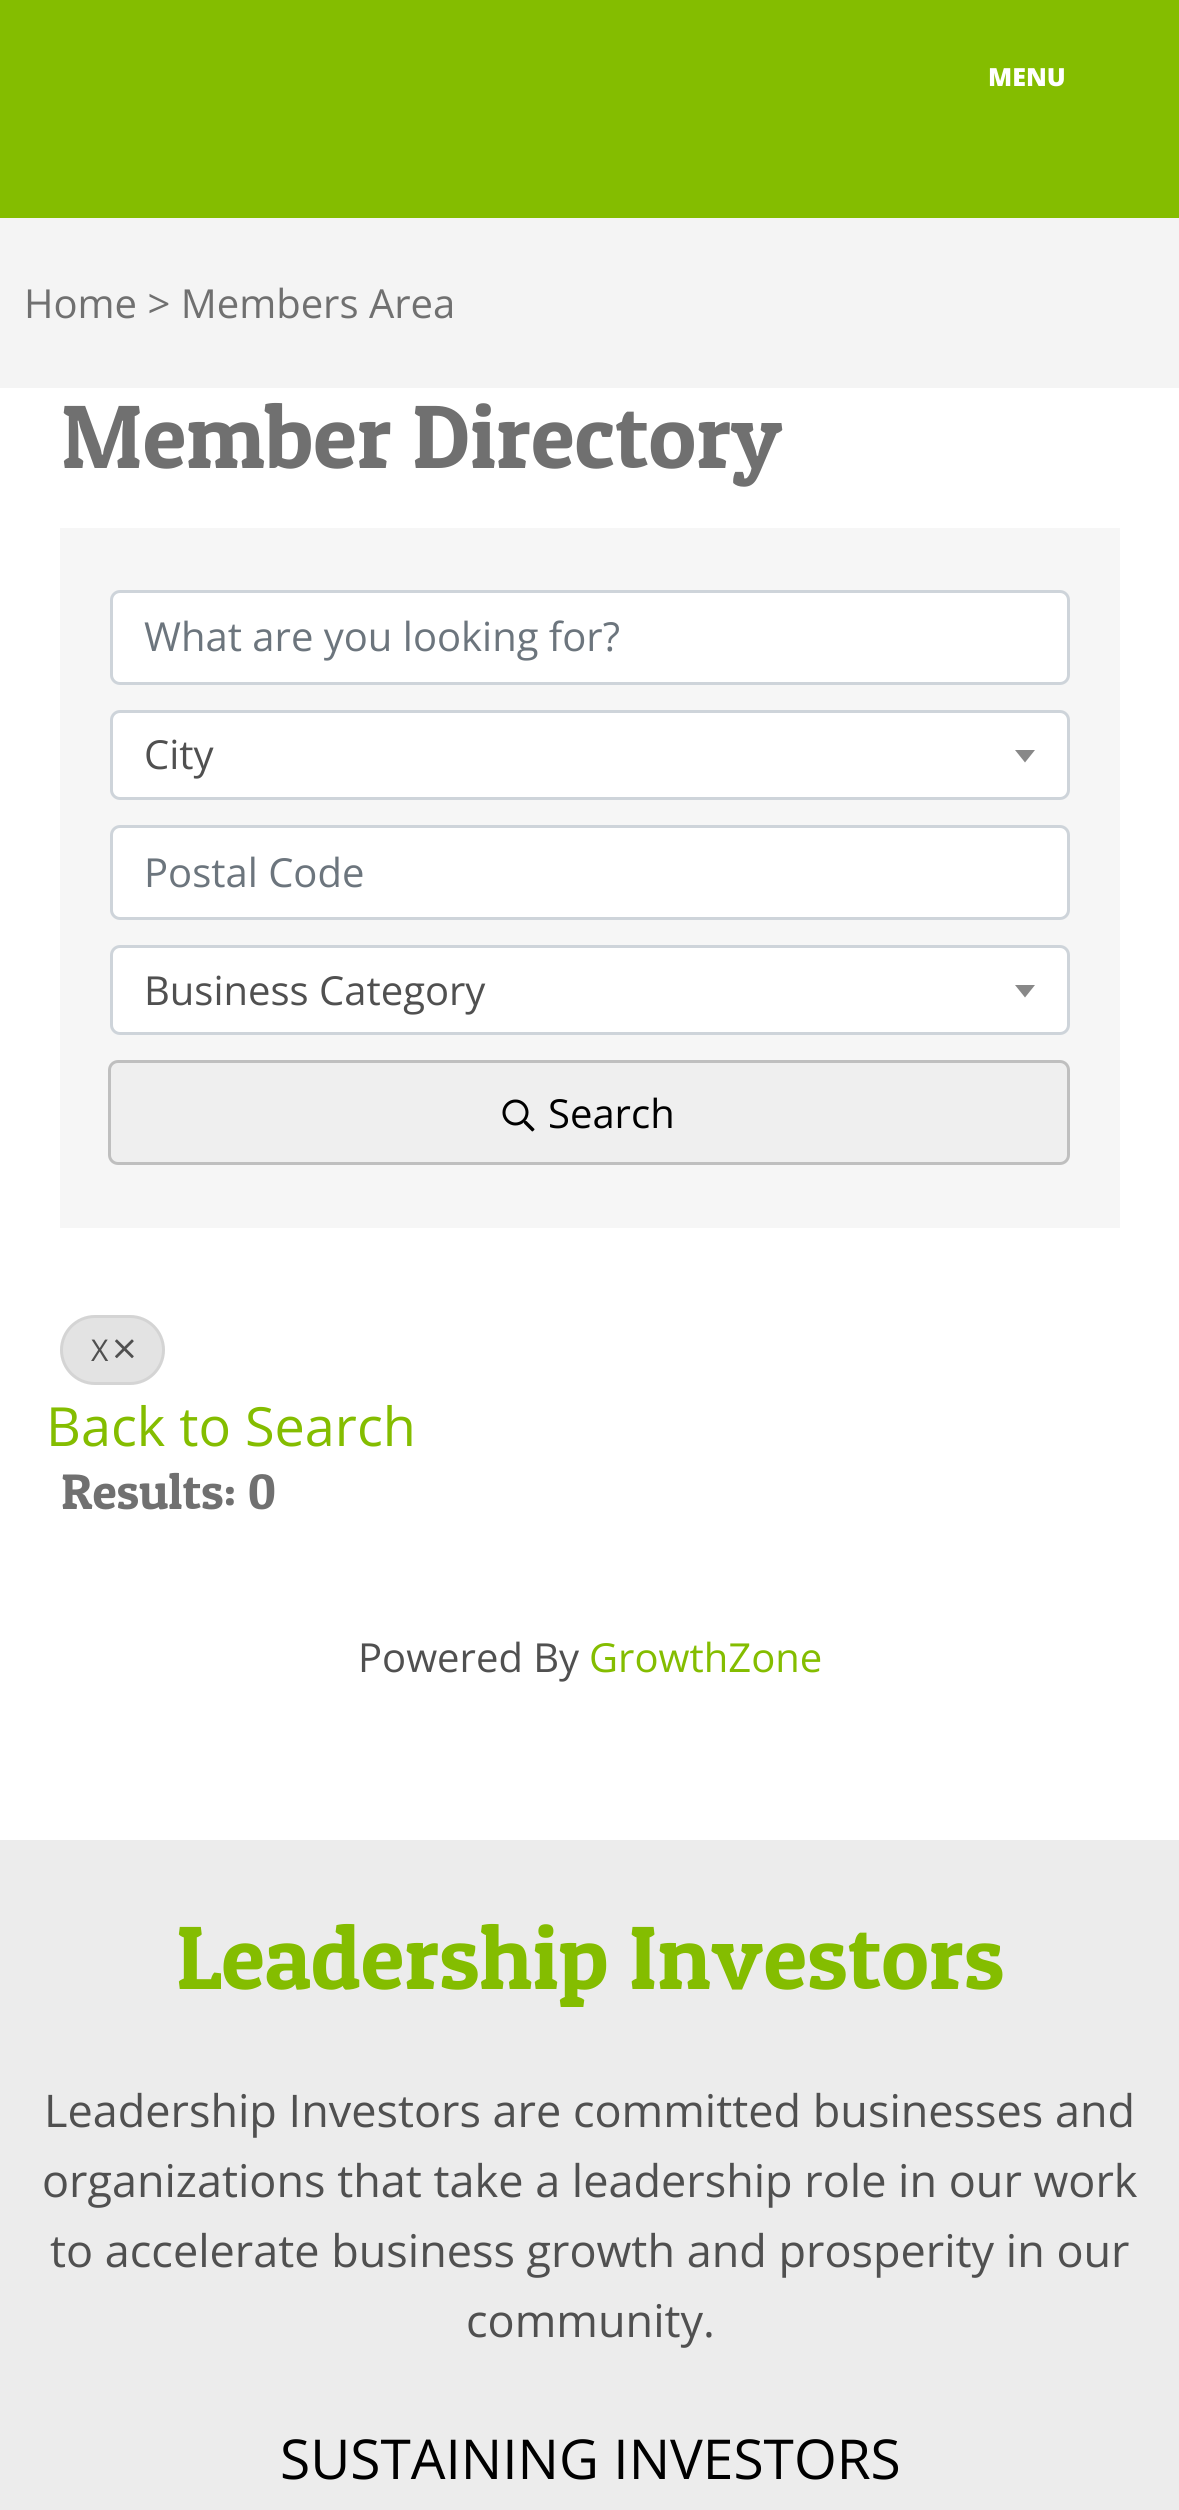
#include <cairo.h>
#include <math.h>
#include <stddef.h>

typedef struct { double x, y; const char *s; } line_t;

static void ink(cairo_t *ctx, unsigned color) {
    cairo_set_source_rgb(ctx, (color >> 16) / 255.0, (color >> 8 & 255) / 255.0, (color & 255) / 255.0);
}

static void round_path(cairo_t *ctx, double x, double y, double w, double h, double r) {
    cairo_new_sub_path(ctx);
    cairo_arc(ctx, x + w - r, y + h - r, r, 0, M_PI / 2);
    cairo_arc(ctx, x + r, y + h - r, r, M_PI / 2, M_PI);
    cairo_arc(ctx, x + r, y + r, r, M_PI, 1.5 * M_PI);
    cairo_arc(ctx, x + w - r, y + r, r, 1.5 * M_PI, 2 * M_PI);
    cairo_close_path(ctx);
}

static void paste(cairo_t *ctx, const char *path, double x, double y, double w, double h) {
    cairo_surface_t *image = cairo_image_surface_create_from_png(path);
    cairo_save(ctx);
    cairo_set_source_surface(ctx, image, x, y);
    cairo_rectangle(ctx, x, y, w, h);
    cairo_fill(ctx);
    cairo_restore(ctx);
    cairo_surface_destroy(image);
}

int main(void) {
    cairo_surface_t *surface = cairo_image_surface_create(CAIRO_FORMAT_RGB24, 1179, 2510);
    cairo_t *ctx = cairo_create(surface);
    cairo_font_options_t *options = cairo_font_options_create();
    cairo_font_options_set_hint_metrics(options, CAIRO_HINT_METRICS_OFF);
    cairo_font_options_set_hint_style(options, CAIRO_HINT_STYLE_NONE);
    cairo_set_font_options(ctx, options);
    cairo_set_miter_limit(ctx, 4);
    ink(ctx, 0x84BD00);
    cairo_paint(ctx);
    cairo_select_font_face(ctx, "Open Sans ExtraBold", CAIRO_FONT_SLANT_NORMAL, CAIRO_FONT_WEIGHT_NORMAL);
    cairo_set_font_size(ctx, 25);
    ink(ctx, 0xFFFFFF);
    cairo_move_to(ctx, 988, 86);
    cairo_show_text(ctx, "MENU");
    ink(ctx, 0xF4F4F4);
    cairo_rectangle(ctx, 0, 218, 1179, 170);
    cairo_fill(ctx);
    cairo_select_font_face(ctx, "Open Sans", CAIRO_FONT_SLANT_NORMAL, CAIRO_FONT_WEIGHT_NORMAL);
    cairo_set_font_size(ctx, 40);
    ink(ctx, 0x707070);
    cairo_move_to(ctx, 24, 318);
    cairo_show_text(ctx, "Home > Members Area");
    ink(ctx, 0xFFFFFF);
    cairo_rectangle(ctx, 0, 388, 1179, 1452);
    cairo_fill(ctx);
    cairo_select_font_face(ctx, "Patua One", CAIRO_FONT_SLANT_NORMAL, CAIRO_FONT_WEIGHT_NORMAL);
    cairo_set_font_size(ctx, 90);
    ink(ctx, 0x707070);
    cairo_move_to(ctx, 61, 468);
    cairo_show_text(ctx, "Member Directory");
    ink(ctx, 0xF6F6F6);
    cairo_rectangle(ctx, 60, 528, 1060, 700);
    cairo_fill(ctx);
    ink(ctx, 0xFFFFFF);
    round_path(ctx, 111.5, 591.5, 957, 92, 8.5);
    cairo_fill_preserve(ctx);
    ink(ctx, 0xCED4DA);
    cairo_set_line_width(ctx, 3);
    cairo_stroke(ctx);
    cairo_select_font_face(ctx, "Open Sans", CAIRO_FONT_SLANT_NORMAL, CAIRO_FONT_WEIGHT_NORMAL);
    cairo_set_font_size(ctx, 40);
    ink(ctx, 0x6C757D);
    cairo_move_to(ctx, 144, 651);
    cairo_show_text(ctx, "What are you looking for?");
    ink(ctx, 0xFFFFFF);
    round_path(ctx, 111.5, 711.5, 957, 87, 8.5);
    cairo_fill_preserve(ctx);
    ink(ctx, 0xCED4DA);
    cairo_stroke(ctx);
    ink(ctx, 0x505050);
    cairo_move_to(ctx, 144, 769);
    cairo_show_text(ctx, "City");
    ink(ctx, 0x888888);
    cairo_new_path(ctx);
    cairo_move_to(ctx, 1015, 750);
    cairo_line_to(ctx, 1035, 750);
    cairo_line_to(ctx, 1025, 762.5);
    cairo_close_path(ctx);
    cairo_fill(ctx);
    ink(ctx, 0xFFFFFF);
    round_path(ctx, 111.5, 826.5, 957, 92, 8.5);
    cairo_fill_preserve(ctx);
    ink(ctx, 0xCED4DA);
    cairo_stroke(ctx);
    ink(ctx, 0x6C757D);
    cairo_move_to(ctx, 144, 887);
    cairo_show_text(ctx, "Postal Code");
    ink(ctx, 0xFFFFFF);
    round_path(ctx, 111.5, 946.5, 957, 87, 8.5);
    cairo_fill_preserve(ctx);
    ink(ctx, 0xCED4DA);
    cairo_stroke(ctx);
    ink(ctx, 0x505050);
    cairo_move_to(ctx, 144, 1005);
    cairo_show_text(ctx, "Business Category");
    ink(ctx, 0x888888);
    cairo_new_path(ctx);
    cairo_move_to(ctx, 1015, 985);
    cairo_line_to(ctx, 1035, 985);
    cairo_line_to(ctx, 1025, 997.5);
    cairo_close_path(ctx);
    cairo_fill(ctx);
    ink(ctx, 0xEFEFEF);
    round_path(ctx, 108, 1060, 962, 105, 10);
    cairo_fill(ctx);
    round_path(ctx, 109.5, 1061.5, 959, 102, 8.5);
    cairo_set_source_rgba(ctx, 0, 0, 0, 0.2);
    cairo_stroke(ctx);
    paste(ctx, "media/1.png", 502, 1099, 33, 33);
    ink(ctx, 0x000000);
    cairo_move_to(ctx, 548, 1128);
    cairo_show_text(ctx, "Search");
    ink(ctx, 0xE3E3E3);
    round_path(ctx, 60, 1315, 105, 70, 35);
    cairo_fill(ctx);
    round_path(ctx, 61.5, 1316.5, 102, 67, 33.5);
    cairo_set_source_rgba(ctx, 0, 0, 0, 0.07);
    cairo_stroke(ctx);
    cairo_set_font_size(ctx, 30);
    ink(ctx, 0x505050);
    cairo_move_to(ctx, 91, 1361);
    cairo_show_text(ctx, "X");
    paste(ctx, "media/2.png", 115, 1339, 19, 20);
    cairo_set_font_size(ctx, 54);
    ink(ctx, 0x84BD00);
    cairo_move_to(ctx, 46, 1446);
    cairo_show_text(ctx, "Back to Search");
    cairo_select_font_face(ctx, "Patua One", CAIRO_FONT_SLANT_NORMAL, CAIRO_FONT_WEIGHT_NORMAL);
    cairo_set_font_size(ctx, 50);
    ink(ctx, 0x707070);
    cairo_move_to(ctx, 61, 1509);
    cairo_show_text(ctx, "Results: 0");
    cairo_select_font_face(ctx, "Open Sans", CAIRO_FONT_SLANT_NORMAL, CAIRO_FONT_WEIGHT_NORMAL);
    cairo_set_font_size(ctx, 40);
    ink(ctx, 0x505050);
    cairo_move_to(ctx, 358, 1672);
    cairo_show_text(ctx, "Powered By");
    ink(ctx, 0x84BD00);
    cairo_move_to(ctx, 589, 1672);
    cairo_show_text(ctx, "GrowthZone");
    ink(ctx, 0xECECEC);
    cairo_rectangle(ctx, 0, 1840, 1179, 670);
    cairo_fill(ctx);
    cairo_select_font_face(ctx, "Patua One", CAIRO_FONT_SLANT_NORMAL, CAIRO_FONT_WEIGHT_NORMAL);
    cairo_set_font_size(ctx, 90);
    ink(ctx, 0x84BD00);
    cairo_move_to(ctx, 176, 1989);
    cairo_show_text(ctx, "Leadership Investors");
    cairo_select_font_face(ctx, "Open Sans", CAIRO_FONT_SLANT_NORMAL, CAIRO_FONT_WEIGHT_NORMAL);
    cairo_set_font_size(ctx, 45);
    ink(ctx, 0x505050);
    {
        static const line_t items[] = {
            {44, 2127, "Leadership Investors are committed businesses and"},
            {42, 2197, "organizations that take a leadership role in our work"},
            {50, 2267, "to accelerate business growth and prosperity in our"},
            {466, 2337, "community."},
        };
        for (size_t i = 0; i < sizeof items / sizeof *items; i++) {
            cairo_move_to(ctx, items[i].x, items[i].y);
            cairo_show_text(ctx, items[i].s);
        }
    }
    cairo_set_font_size(ctx, 55);
    ink(ctx, 0x000000);
    cairo_move_to(ctx, 280, 2479);
    cairo_show_text(ctx, "SUSTAINING INVESTORS");
    cairo_surface_write_to_png(surface, "image.png");
    cairo_font_options_destroy(options);
    cairo_destroy(ctx);
    cairo_surface_destroy(surface);
    return 0;
}
